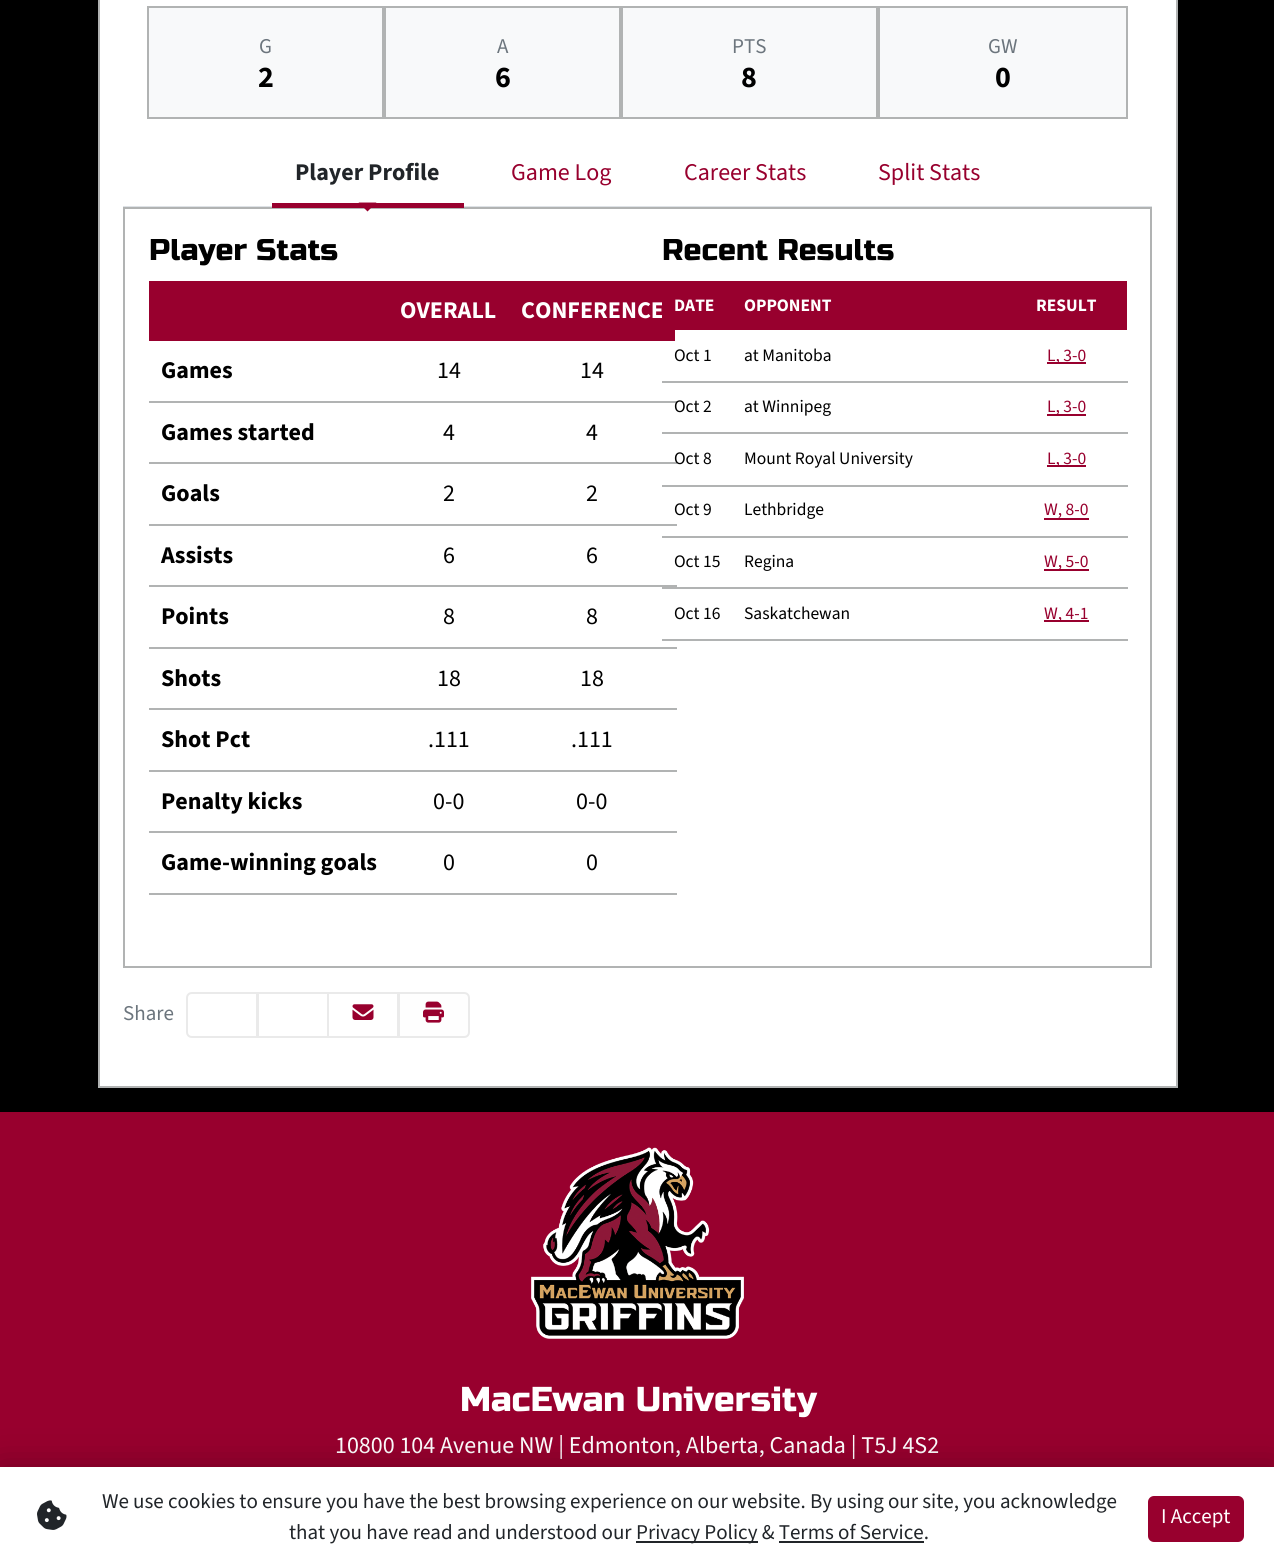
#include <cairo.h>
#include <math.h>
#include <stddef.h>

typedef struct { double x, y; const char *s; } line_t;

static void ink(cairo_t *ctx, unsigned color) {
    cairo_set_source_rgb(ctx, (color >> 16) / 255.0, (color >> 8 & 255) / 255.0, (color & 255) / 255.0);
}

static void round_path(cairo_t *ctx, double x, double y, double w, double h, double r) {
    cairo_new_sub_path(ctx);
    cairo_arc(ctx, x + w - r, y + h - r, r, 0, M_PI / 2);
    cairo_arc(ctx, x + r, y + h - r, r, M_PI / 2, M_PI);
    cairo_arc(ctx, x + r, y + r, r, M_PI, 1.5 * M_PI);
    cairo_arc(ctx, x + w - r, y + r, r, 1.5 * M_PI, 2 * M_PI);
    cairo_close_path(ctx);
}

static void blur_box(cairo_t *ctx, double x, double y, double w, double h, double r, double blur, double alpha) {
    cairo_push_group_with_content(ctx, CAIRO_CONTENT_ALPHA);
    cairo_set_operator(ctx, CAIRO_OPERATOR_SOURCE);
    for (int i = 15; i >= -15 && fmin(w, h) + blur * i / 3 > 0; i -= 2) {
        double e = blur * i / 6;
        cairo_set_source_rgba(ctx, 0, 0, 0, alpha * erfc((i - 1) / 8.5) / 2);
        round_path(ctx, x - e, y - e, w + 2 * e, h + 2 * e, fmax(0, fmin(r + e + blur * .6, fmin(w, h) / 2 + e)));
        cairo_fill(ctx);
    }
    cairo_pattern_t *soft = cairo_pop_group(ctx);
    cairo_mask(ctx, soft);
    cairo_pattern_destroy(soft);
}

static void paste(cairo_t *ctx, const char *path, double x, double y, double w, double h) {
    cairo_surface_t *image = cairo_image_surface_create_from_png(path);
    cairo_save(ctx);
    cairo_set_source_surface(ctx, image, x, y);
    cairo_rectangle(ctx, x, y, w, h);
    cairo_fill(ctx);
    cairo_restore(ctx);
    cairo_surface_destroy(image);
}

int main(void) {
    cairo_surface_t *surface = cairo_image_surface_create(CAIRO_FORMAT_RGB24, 1274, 1568);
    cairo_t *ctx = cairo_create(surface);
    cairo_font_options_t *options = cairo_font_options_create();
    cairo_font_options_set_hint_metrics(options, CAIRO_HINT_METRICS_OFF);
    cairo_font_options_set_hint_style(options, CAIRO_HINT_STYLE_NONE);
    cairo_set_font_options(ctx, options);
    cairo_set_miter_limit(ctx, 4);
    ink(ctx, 0x000000);
    cairo_paint(ctx);
    ink(ctx, 0xFFFFFF);
    cairo_rectangle(ctx, 99, -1, 1078, 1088);
    cairo_fill_preserve(ctx);
    ink(ctx, 0xB1B3B3);
    cairo_stroke(ctx);
    ink(ctx, 0xF8F9FA);
    cairo_rectangle(ctx, 149, 8, 977, 109);
    cairo_fill(ctx);
    cairo_rectangle(ctx, 148, 7, 235, 111);
    ink(ctx, 0xB1B3B3);
    cairo_stroke(ctx);
    cairo_select_font_face(ctx, "Source Sans 3", CAIRO_FONT_SLANT_NORMAL, CAIRO_FONT_WEIGHT_NORMAL);
    cairo_set_font_size(ctx, 21);
    ink(ctx, 0x6C757D);
    cairo_move_to(ctx, 259, 53);
    cairo_show_text(ctx, "G");
    cairo_select_font_face(ctx, "Source Sans 3", CAIRO_FONT_SLANT_NORMAL, CAIRO_FONT_WEIGHT_BOLD);
    cairo_set_font_size(ctx, 30);
    ink(ctx, 0x000000);
    cairo_move_to(ctx, 258, 87);
    cairo_show_text(ctx, "2");
    cairo_rectangle(ctx, 385, 7, 235, 111);
    ink(ctx, 0xB1B3B3);
    cairo_stroke(ctx);
    cairo_select_font_face(ctx, "Source Sans 3", CAIRO_FONT_SLANT_NORMAL, CAIRO_FONT_WEIGHT_NORMAL);
    cairo_set_font_size(ctx, 21);
    ink(ctx, 0x6C757D);
    cairo_move_to(ctx, 497, 53);
    cairo_show_text(ctx, "A");
    cairo_select_font_face(ctx, "Source Sans 3", CAIRO_FONT_SLANT_NORMAL, CAIRO_FONT_WEIGHT_BOLD);
    cairo_set_font_size(ctx, 30);
    ink(ctx, 0x000000);
    cairo_move_to(ctx, 495, 87);
    cairo_show_text(ctx, "6");
    cairo_rectangle(ctx, 622, 7, 255, 111);
    ink(ctx, 0xB1B3B3);
    cairo_stroke(ctx);
    cairo_select_font_face(ctx, "Source Sans 3", CAIRO_FONT_SLANT_NORMAL, CAIRO_FONT_WEIGHT_NORMAL);
    cairo_set_font_size(ctx, 21);
    ink(ctx, 0x6C757D);
    cairo_move_to(ctx, 732, 53);
    cairo_show_text(ctx, "PTS");
    cairo_select_font_face(ctx, "Source Sans 3", CAIRO_FONT_SLANT_NORMAL, CAIRO_FONT_WEIGHT_BOLD);
    cairo_set_font_size(ctx, 30);
    ink(ctx, 0x000000);
    cairo_move_to(ctx, 741, 87);
    cairo_show_text(ctx, "8");
    cairo_rectangle(ctx, 879, 7, 248, 111);
    ink(ctx, 0xB1B3B3);
    cairo_stroke(ctx);
    cairo_select_font_face(ctx, "Source Sans 3", CAIRO_FONT_SLANT_NORMAL, CAIRO_FONT_WEIGHT_NORMAL);
    cairo_set_font_size(ctx, 21);
    ink(ctx, 0x6C757D);
    cairo_move_to(ctx, 988, 53);
    cairo_show_text(ctx, "GW");
    cairo_select_font_face(ctx, "Source Sans 3", CAIRO_FONT_SLANT_NORMAL, CAIRO_FONT_WEIGHT_BOLD);
    cairo_set_font_size(ctx, 30);
    ink(ctx, 0x000000);
    cairo_move_to(ctx, 995, 87);
    cairo_show_text(ctx, "0");
    ink(ctx, 0xDEE2E6);
    cairo_rectangle(ctx, 123, 206, 1029, 1);
    cairo_fill(ctx);
    cairo_rectangle(ctx, 124, 208, 1027, 759);
    ink(ctx, 0xB1B3B3);
    cairo_stroke(ctx);
    ink(ctx, 0x98002E);
    cairo_rectangle(ctx, 272, 203, 192, 5);
    cairo_fill(ctx);
    cairo_set_font_size(ctx, 24);
    ink(ctx, 0x212529);
    cairo_move_to(ctx, 295, 180);
    cairo_show_text(ctx, "Player Profile");
    ink(ctx, 0x98002E);
    cairo_new_path(ctx);
    cairo_move_to(ctx, 358.5, 202.5);
    cairo_line_to(ctx, 376.5, 202.5);
    cairo_line_to(ctx, 367.5, 211.5);
    cairo_close_path(ctx);
    cairo_fill(ctx);
    cairo_select_font_face(ctx, "Source Sans 3", CAIRO_FONT_SLANT_NORMAL, CAIRO_FONT_WEIGHT_NORMAL);
    {
        static const line_t items[] = {
            {511, 180, "Game Log"},
            {684, 180, "Career Stats"},
            {878, 180, "Split Stats"},
        };
        for (size_t i = 0; i < sizeof items / sizeof *items; i++) {
            cairo_move_to(ctx, items[i].x, items[i].y);
            cairo_show_text(ctx, items[i].s);
        }
    }
    cairo_select_font_face(ctx, "Russo One", CAIRO_FONT_SLANT_NORMAL, CAIRO_FONT_WEIGHT_NORMAL);
    cairo_set_font_size(ctx, 30);
    ink(ctx, 0x000000);
    cairo_move_to(ctx, 149, 260);
    cairo_show_text(ctx, "Player Stats");
    ink(ctx, 0x98002E);
    cairo_rectangle(ctx, 149, 281, 526, 60);
    cairo_fill(ctx);
    cairo_select_font_face(ctx, "Source Sans 3", CAIRO_FONT_SLANT_NORMAL, CAIRO_FONT_WEIGHT_BOLD);
    cairo_set_font_size(ctx, 24);
    ink(ctx, 0xFFFFFF);
    cairo_move_to(ctx, 400, 318);
    cairo_show_text(ctx, "OVERALL");
    cairo_move_to(ctx, 521, 318);
    cairo_show_text(ctx, "CONFERENCE");
    ink(ctx, 0x000000);
    cairo_move_to(ctx, 161, 378);
    cairo_show_text(ctx, "Games");
    cairo_select_font_face(ctx, "Source Sans 3", CAIRO_FONT_SLANT_NORMAL, CAIRO_FONT_WEIGHT_NORMAL);
    cairo_move_to(ctx, 437, 378);
    cairo_show_text(ctx, "14");
    ink(ctx, 0xB1B3B3);
    cairo_rectangle(ctx, 149, 401, 528, 2);
    cairo_fill(ctx);
    ink(ctx, 0x000000);
    cairo_move_to(ctx, 580, 378);
    cairo_show_text(ctx, "14");
    cairo_select_font_face(ctx, "Source Sans 3", CAIRO_FONT_SLANT_NORMAL, CAIRO_FONT_WEIGHT_BOLD);
    cairo_move_to(ctx, 161, 440);
    cairo_show_text(ctx, "Games started");
    cairo_select_font_face(ctx, "Source Sans 3", CAIRO_FONT_SLANT_NORMAL, CAIRO_FONT_WEIGHT_NORMAL);
    cairo_move_to(ctx, 443, 440);
    cairo_show_text(ctx, "4");
    ink(ctx, 0xB1B3B3);
    cairo_rectangle(ctx, 149, 462, 528, 2);
    cairo_fill(ctx);
    ink(ctx, 0x000000);
    cairo_move_to(ctx, 586, 440);
    cairo_show_text(ctx, "4");
    cairo_select_font_face(ctx, "Source Sans 3", CAIRO_FONT_SLANT_NORMAL, CAIRO_FONT_WEIGHT_BOLD);
    cairo_move_to(ctx, 161, 501);
    cairo_show_text(ctx, "Goals");
    cairo_select_font_face(ctx, "Source Sans 3", CAIRO_FONT_SLANT_NORMAL, CAIRO_FONT_WEIGHT_NORMAL);
    cairo_move_to(ctx, 443, 501);
    cairo_show_text(ctx, "2");
    ink(ctx, 0xB1B3B3);
    cairo_rectangle(ctx, 149, 524, 528, 2);
    cairo_fill(ctx);
    ink(ctx, 0x000000);
    cairo_move_to(ctx, 586, 501);
    cairo_show_text(ctx, "2");
    cairo_select_font_face(ctx, "Source Sans 3", CAIRO_FONT_SLANT_NORMAL, CAIRO_FONT_WEIGHT_BOLD);
    cairo_move_to(ctx, 161, 563);
    cairo_show_text(ctx, "Assists");
    cairo_select_font_face(ctx, "Source Sans 3", CAIRO_FONT_SLANT_NORMAL, CAIRO_FONT_WEIGHT_NORMAL);
    cairo_move_to(ctx, 443, 563);
    cairo_show_text(ctx, "6");
    ink(ctx, 0xB1B3B3);
    cairo_rectangle(ctx, 149, 585, 528, 2);
    cairo_fill(ctx);
    ink(ctx, 0x000000);
    cairo_move_to(ctx, 586, 563);
    cairo_show_text(ctx, "6");
    cairo_select_font_face(ctx, "Source Sans 3", CAIRO_FONT_SLANT_NORMAL, CAIRO_FONT_WEIGHT_BOLD);
    cairo_move_to(ctx, 161, 624);
    cairo_show_text(ctx, "Points");
    cairo_select_font_face(ctx, "Source Sans 3", CAIRO_FONT_SLANT_NORMAL, CAIRO_FONT_WEIGHT_NORMAL);
    cairo_move_to(ctx, 443, 624);
    cairo_show_text(ctx, "8");
    ink(ctx, 0xB1B3B3);
    cairo_rectangle(ctx, 149, 647, 528, 2);
    cairo_fill(ctx);
    ink(ctx, 0x000000);
    cairo_move_to(ctx, 586, 624);
    cairo_show_text(ctx, "8");
    cairo_select_font_face(ctx, "Source Sans 3", CAIRO_FONT_SLANT_NORMAL, CAIRO_FONT_WEIGHT_BOLD);
    cairo_move_to(ctx, 161, 686);
    cairo_show_text(ctx, "Shots");
    cairo_select_font_face(ctx, "Source Sans 3", CAIRO_FONT_SLANT_NORMAL, CAIRO_FONT_WEIGHT_NORMAL);
    cairo_move_to(ctx, 437, 686);
    cairo_show_text(ctx, "18");
    ink(ctx, 0xB1B3B3);
    cairo_rectangle(ctx, 149, 708, 528, 2);
    cairo_fill(ctx);
    ink(ctx, 0x000000);
    cairo_move_to(ctx, 580, 686);
    cairo_show_text(ctx, "18");
    cairo_select_font_face(ctx, "Source Sans 3", CAIRO_FONT_SLANT_NORMAL, CAIRO_FONT_WEIGHT_BOLD);
    cairo_move_to(ctx, 161, 747);
    cairo_show_text(ctx, "Shot Pct");
    cairo_select_font_face(ctx, "Source Sans 3", CAIRO_FONT_SLANT_NORMAL, CAIRO_FONT_WEIGHT_NORMAL);
    cairo_move_to(ctx, 428, 747);
    cairo_show_text(ctx, ".111");
    ink(ctx, 0xB1B3B3);
    cairo_rectangle(ctx, 149, 770, 528, 2);
    cairo_fill(ctx);
    ink(ctx, 0x000000);
    cairo_move_to(ctx, 571, 747);
    cairo_show_text(ctx, ".111");
    cairo_select_font_face(ctx, "Source Sans 3", CAIRO_FONT_SLANT_NORMAL, CAIRO_FONT_WEIGHT_BOLD);
    cairo_move_to(ctx, 161, 809);
    cairo_show_text(ctx, "Penalty kicks");
    cairo_select_font_face(ctx, "Source Sans 3", CAIRO_FONT_SLANT_NORMAL, CAIRO_FONT_WEIGHT_NORMAL);
    cairo_move_to(ctx, 433, 809);
    cairo_show_text(ctx, "0-0");
    ink(ctx, 0xB1B3B3);
    cairo_rectangle(ctx, 149, 831, 528, 2);
    cairo_fill(ctx);
    ink(ctx, 0x000000);
    cairo_move_to(ctx, 576, 809);
    cairo_show_text(ctx, "0-0");
    cairo_select_font_face(ctx, "Source Sans 3", CAIRO_FONT_SLANT_NORMAL, CAIRO_FONT_WEIGHT_BOLD);
    cairo_move_to(ctx, 161, 870);
    cairo_show_text(ctx, "Game-winning goals");
    cairo_select_font_face(ctx, "Source Sans 3", CAIRO_FONT_SLANT_NORMAL, CAIRO_FONT_WEIGHT_NORMAL);
    cairo_move_to(ctx, 443, 870);
    cairo_show_text(ctx, "0");
    ink(ctx, 0xB1B3B3);
    cairo_rectangle(ctx, 149, 893, 528, 2);
    cairo_fill(ctx);
    ink(ctx, 0x000000);
    cairo_move_to(ctx, 586, 870);
    cairo_show_text(ctx, "0");
    cairo_select_font_face(ctx, "Russo One", CAIRO_FONT_SLANT_NORMAL, CAIRO_FONT_WEIGHT_NORMAL);
    cairo_set_font_size(ctx, 30);
    cairo_move_to(ctx, 662, 260);
    cairo_show_text(ctx, "Recent Results");
    ink(ctx, 0x98002E);
    cairo_rectangle(ctx, 662, 281, 465, 49);
    cairo_fill(ctx);
    cairo_select_font_face(ctx, "Source Sans 3", CAIRO_FONT_SLANT_NORMAL, CAIRO_FONT_WEIGHT_BOLD);
    cairo_set_font_size(ctx, 17.5);
    ink(ctx, 0xFFFFFF);
    {
        static const line_t items[] = {
            {674, 311, "DATE"},
            {744, 311, "OPPONENT"},
            {1036, 311, "RESULT"},
        };
        for (size_t i = 0; i < sizeof items / sizeof *items; i++) {
            cairo_move_to(ctx, items[i].x, items[i].y);
            cairo_show_text(ctx, items[i].s);
        }
    }
    cairo_select_font_face(ctx, "Source Sans 3", CAIRO_FONT_SLANT_NORMAL, CAIRO_FONT_WEIGHT_NORMAL);
    ink(ctx, 0x000000);
    cairo_move_to(ctx, 674, 361);
    cairo_show_text(ctx, "Oct 1");
    cairo_move_to(ctx, 744, 361);
    cairo_show_text(ctx, "at Manitoba");
    ink(ctx, 0xB1B3B3);
    cairo_rectangle(ctx, 662, 381, 466, 2);
    cairo_fill(ctx);
    ink(ctx, 0x98002E);
    cairo_rectangle(ctx, 1047, 362, 39, 2);
    cairo_fill(ctx);
    cairo_move_to(ctx, 1047, 361);
    cairo_show_text(ctx, "L, 3-0");
    ink(ctx, 0x000000);
    cairo_move_to(ctx, 674, 412);
    cairo_show_text(ctx, "Oct 2");
    cairo_move_to(ctx, 744, 412);
    cairo_show_text(ctx, "at Winnipeg");
    ink(ctx, 0xB1B3B3);
    cairo_rectangle(ctx, 662, 432, 466, 2);
    cairo_fill(ctx);
    ink(ctx, 0x98002E);
    cairo_rectangle(ctx, 1047, 414, 39, 2);
    cairo_fill(ctx);
    cairo_move_to(ctx, 1047, 412);
    cairo_show_text(ctx, "L, 3-0");
    ink(ctx, 0x000000);
    cairo_move_to(ctx, 674, 464);
    cairo_show_text(ctx, "Oct 8");
    cairo_move_to(ctx, 744, 464);
    cairo_show_text(ctx, "Mount Royal University");
    ink(ctx, 0xB1B3B3);
    cairo_rectangle(ctx, 662, 485, 466, 2);
    cairo_fill(ctx);
    ink(ctx, 0x98002E);
    cairo_rectangle(ctx, 1047, 465, 39, 2);
    cairo_fill(ctx);
    cairo_move_to(ctx, 1047, 464);
    cairo_show_text(ctx, "L, 3-0");
    ink(ctx, 0x000000);
    cairo_move_to(ctx, 674, 515);
    cairo_show_text(ctx, "Oct 9");
    cairo_move_to(ctx, 744, 515);
    cairo_show_text(ctx, "Lethbridge");
    ink(ctx, 0xB1B3B3);
    cairo_rectangle(ctx, 662, 536, 466, 2);
    cairo_fill(ctx);
    ink(ctx, 0x98002E);
    cairo_move_to(ctx, 1044, 515);
    cairo_show_text(ctx, "W, 8-0");
    cairo_rectangle(ctx, 1044, 518, 45, 2);
    cairo_fill(ctx);
    ink(ctx, 0x000000);
    cairo_move_to(ctx, 674, 567);
    cairo_show_text(ctx, "Oct 15");
    cairo_move_to(ctx, 744, 567);
    cairo_show_text(ctx, "Regina");
    ink(ctx, 0xB1B3B3);
    cairo_rectangle(ctx, 662, 587, 466, 2);
    cairo_fill(ctx);
    ink(ctx, 0x98002E);
    cairo_rectangle(ctx, 1044, 569, 45, 2);
    cairo_fill(ctx);
    cairo_move_to(ctx, 1044, 567);
    cairo_show_text(ctx, "W, 5-0");
    ink(ctx, 0x000000);
    cairo_move_to(ctx, 674, 619);
    cairo_show_text(ctx, "Oct 16");
    cairo_move_to(ctx, 744, 619);
    cairo_show_text(ctx, "Saskatchewan");
    ink(ctx, 0xB1B3B3);
    cairo_rectangle(ctx, 662, 639, 466, 2);
    cairo_fill(ctx);
    ink(ctx, 0x98002E);
    cairo_rectangle(ctx, 1044, 620, 45, 2);
    cairo_fill(ctx);
    cairo_move_to(ctx, 1044, 619);
    cairo_show_text(ctx, "W, 4-1");
    cairo_set_font_size(ctx, 21);
    ink(ctx, 0x6C757D);
    cairo_move_to(ctx, 123, 1020);
    cairo_show_text(ctx, "Share");
    cairo_new_path(ctx);
    cairo_move_to(ctx, 192, 993);
    cairo_line_to(ctx, 257, 993);
    cairo_line_to(ctx, 257, 1037);
    cairo_line_to(ctx, 192, 1037);
    cairo_curve_to(ctx, 189, 1037, 187, 1035, 187, 1032);
    cairo_line_to(ctx, 187, 998);
    cairo_curve_to(ctx, 187, 995, 189, 993, 192, 993);
    cairo_close_path(ctx);
    ink(ctx, 0xEAEAEA);
    cairo_stroke(ctx);
    cairo_rectangle(ctx, 258, 993, 70, 44);
    cairo_stroke(ctx);
    cairo_rectangle(ctx, 328, 993, 70, 44);
    cairo_stroke(ctx);
    paste(ctx, "media/1.png", 352, 1004, 22, 16);
    ink(ctx, 0xFEFEFE);
    cairo_new_path(ctx);
    cairo_move_to(ctx, 399, 993);
    cairo_line_to(ctx, 464, 993);
    cairo_curve_to(ctx, 467, 993, 469, 995, 469, 998);
    cairo_line_to(ctx, 469, 1032);
    cairo_curve_to(ctx, 469, 1035, 467, 1037, 464, 1037);
    cairo_line_to(ctx, 399, 1037);
    cairo_close_path(ctx);
    cairo_fill_preserve(ctx);
    ink(ctx, 0xEAEAEA);
    cairo_stroke(ctx);
    paste(ctx, "media/2.png", 423, 1001, 21, 22);
    ink(ctx, 0x98002E);
    cairo_rectangle(ctx, 0, 1112, 1274, 355);
    cairo_fill(ctx);
    paste(ctx, "media/3.png", 531, 1147, 213, 192);
    cairo_select_font_face(ctx, "Russo One", CAIRO_FONT_SLANT_NORMAL, CAIRO_FONT_WEIGHT_NORMAL);
    cairo_set_font_size(ctx, 34.5);
    ink(ctx, 0xFFFFFF);
    cairo_move_to(ctx, 460, 1411);
    cairo_show_text(ctx, "MacEwan University");
    cairo_select_font_face(ctx, "Source Sans 3", CAIRO_FONT_SLANT_NORMAL, CAIRO_FONT_WEIGHT_NORMAL);
    cairo_set_font_size(ctx, 24);
    cairo_move_to(ctx, 335, 1453);
    cairo_show_text(ctx, "10800 104 Avenue NW | Edmonton, Alberta, Canada | T5J 4S2");
    ink(ctx, 0x000000);
    blur_box(ctx, 0, 1467, 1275, 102, 0, 18, 0.25);
    ink(ctx, 0xFFFFFF);
    cairo_rectangle(ctx, 0, 1467, 1274, 101);
    cairo_fill(ctx);
    paste(ctx, "media/4.png", 37, 1500, 30, 30);
    cairo_set_font_size(ctx, 21);
    ink(ctx, 0x212529);
    cairo_move_to(ctx, 102, 1508);
    cairo_show_text(ctx, "We use cookies to ensure you have the best browsing experience on our website. By using our site, you acknowledge");
    cairo_move_to(ctx, 289, 1539);
    cairo_show_text(ctx, "that you have read and understood our");
    cairo_rectangle(ctx, 636, 1541, 122, 2);
    cairo_fill(ctx);
    cairo_move_to(ctx, 636, 1539);
    cairo_show_text(ctx, "Privacy Policy & Terms of Service.");
    cairo_rectangle(ctx, 779, 1541, 145, 2);
    cairo_fill(ctx);
    ink(ctx, 0x98002E);
    round_path(ctx, 1149, 1497, 94, 44, 5);
    cairo_fill_preserve(ctx);
    cairo_stroke(ctx);
    ink(ctx, 0xFFFFFF);
    cairo_move_to(ctx, 1161, 1523);
    cairo_show_text(ctx, "I Accept");
    cairo_surface_write_to_png(surface, "image.png");
    cairo_font_options_destroy(options);
    cairo_destroy(ctx);
    cairo_surface_destroy(surface);
    return 0;
}
